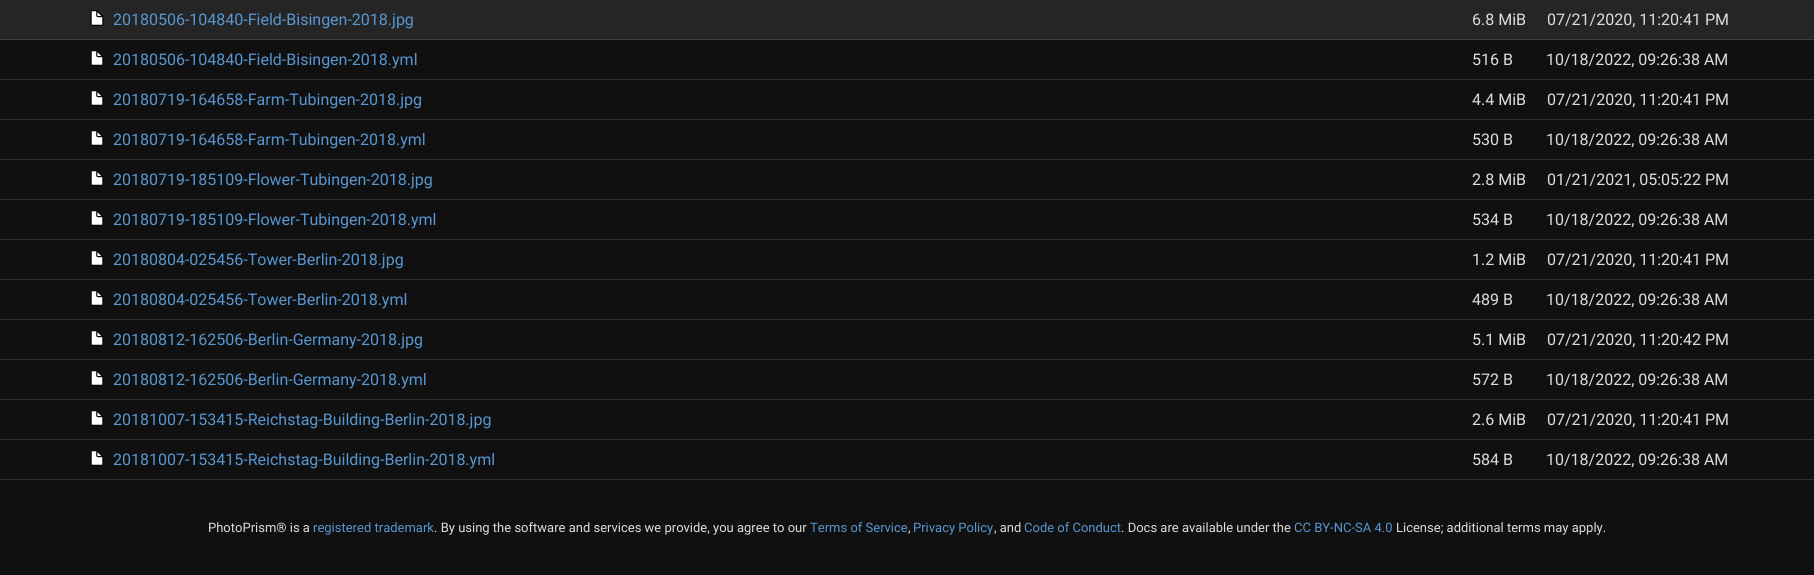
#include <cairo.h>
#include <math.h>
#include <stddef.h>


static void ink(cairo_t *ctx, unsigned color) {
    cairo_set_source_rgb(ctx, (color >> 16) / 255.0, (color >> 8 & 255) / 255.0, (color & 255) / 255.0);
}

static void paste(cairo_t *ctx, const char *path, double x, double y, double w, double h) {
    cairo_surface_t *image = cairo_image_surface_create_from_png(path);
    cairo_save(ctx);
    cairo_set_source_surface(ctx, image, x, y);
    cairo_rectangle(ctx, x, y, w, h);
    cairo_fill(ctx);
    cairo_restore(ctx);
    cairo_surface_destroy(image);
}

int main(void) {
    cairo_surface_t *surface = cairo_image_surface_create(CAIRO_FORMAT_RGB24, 1814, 575);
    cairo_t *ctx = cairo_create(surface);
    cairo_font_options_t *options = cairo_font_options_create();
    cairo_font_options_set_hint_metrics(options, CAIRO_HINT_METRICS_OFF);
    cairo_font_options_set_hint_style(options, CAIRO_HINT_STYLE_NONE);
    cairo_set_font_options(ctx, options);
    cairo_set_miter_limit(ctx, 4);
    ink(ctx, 0x101010);
    cairo_paint(ctx);
    ink(ctx, 0x252525);
    cairo_rectangle(ctx, 0, 0, 1814, 39);
    cairo_fill(ctx);
    ink(ctx, 0x3F3F3F);
    cairo_rectangle(ctx, 0, 39, 1814, 1);
    cairo_fill(ctx);
    paste(ctx, "media/1.png", 90, 10, 14, 16);
    cairo_select_font_face(ctx, "Roboto", CAIRO_FONT_SLANT_NORMAL, CAIRO_FONT_WEIGHT_NORMAL);
    cairo_set_font_size(ctx, 16);
    ink(ctx, 0x5796D1);
    cairo_move_to(ctx, 113, 25);
    cairo_show_text(ctx, "20180506-104840-Field-Bisingen-2018.jpg");
    ink(ctx, 0xDDDDDD);
    cairo_move_to(ctx, 1472, 25);
    cairo_show_text(ctx, "6.8 MiB");
    cairo_move_to(ctx, 1547, 25);
    cairo_show_text(ctx, "07/21/2020, 11:20:41 PM");
    ink(ctx, 0x2D2D2D);
    cairo_rectangle(ctx, 0, 79, 1814, 1);
    cairo_fill(ctx);
    paste(ctx, "media/2.png", 90, 50, 14, 16);
    ink(ctx, 0x5796D1);
    cairo_move_to(ctx, 113, 65);
    cairo_show_text(ctx, "20180506-104840-Field-Bisingen-2018.yml");
    ink(ctx, 0xDDDDDD);
    cairo_move_to(ctx, 1472, 65);
    cairo_show_text(ctx, "516 B");
    cairo_move_to(ctx, 1546, 65);
    cairo_show_text(ctx, "10/18/2022, 09:26:38 AM");
    ink(ctx, 0x2D2D2D);
    cairo_rectangle(ctx, 0, 119, 1814, 1);
    cairo_fill(ctx);
    paste(ctx, "media/2.png", 90, 90, 14, 16);
    ink(ctx, 0x5796D1);
    cairo_move_to(ctx, 113, 105);
    cairo_show_text(ctx, "20180719-164658-Farm-Tubingen-2018.jpg");
    ink(ctx, 0xDDDDDD);
    cairo_move_to(ctx, 1472, 105);
    cairo_show_text(ctx, "4.4 MiB");
    cairo_move_to(ctx, 1547, 105);
    cairo_show_text(ctx, "07/21/2020, 11:20:41 PM");
    ink(ctx, 0x2D2D2D);
    cairo_rectangle(ctx, 0, 159, 1814, 1);
    cairo_fill(ctx);
    paste(ctx, "media/2.png", 90, 130, 14, 16);
    ink(ctx, 0x5796D1);
    cairo_move_to(ctx, 113, 145);
    cairo_show_text(ctx, "20180719-164658-Farm-Tubingen-2018.yml");
    ink(ctx, 0xDDDDDD);
    cairo_move_to(ctx, 1472, 145);
    cairo_show_text(ctx, "530 B");
    cairo_move_to(ctx, 1546, 145);
    cairo_show_text(ctx, "10/18/2022, 09:26:38 AM");
    ink(ctx, 0x2D2D2D);
    cairo_rectangle(ctx, 0, 199, 1814, 1);
    cairo_fill(ctx);
    paste(ctx, "media/2.png", 90, 170, 14, 16);
    ink(ctx, 0x5796D1);
    cairo_move_to(ctx, 113, 185);
    cairo_show_text(ctx, "20180719-185109-Flower-Tubingen-2018.jpg");
    ink(ctx, 0xDDDDDD);
    cairo_move_to(ctx, 1472, 185);
    cairo_show_text(ctx, "2.8 MiB");
    cairo_move_to(ctx, 1547, 185);
    cairo_show_text(ctx, "01/21/2021, 05:05:22 PM");
    ink(ctx, 0x2D2D2D);
    cairo_rectangle(ctx, 0, 239, 1814, 1);
    cairo_fill(ctx);
    paste(ctx, "media/2.png", 90, 210, 14, 16);
    ink(ctx, 0x5796D1);
    cairo_move_to(ctx, 113, 225);
    cairo_show_text(ctx, "20180719-185109-Flower-Tubingen-2018.yml");
    ink(ctx, 0xDDDDDD);
    cairo_move_to(ctx, 1472, 225);
    cairo_show_text(ctx, "534 B");
    cairo_move_to(ctx, 1546, 225);
    cairo_show_text(ctx, "10/18/2022, 09:26:38 AM");
    ink(ctx, 0x2D2D2D);
    cairo_rectangle(ctx, 0, 279, 1814, 1);
    cairo_fill(ctx);
    paste(ctx, "media/2.png", 90, 250, 14, 16);
    ink(ctx, 0x5796D1);
    cairo_move_to(ctx, 113, 265);
    cairo_show_text(ctx, "20180804-025456-Tower-Berlin-2018.jpg");
    ink(ctx, 0xDDDDDD);
    cairo_move_to(ctx, 1472, 265);
    cairo_show_text(ctx, "1.2 MiB");
    cairo_move_to(ctx, 1547, 265);
    cairo_show_text(ctx, "07/21/2020, 11:20:41 PM");
    ink(ctx, 0x2D2D2D);
    cairo_rectangle(ctx, 0, 319, 1814, 1);
    cairo_fill(ctx);
    paste(ctx, "media/2.png", 90, 290, 14, 16);
    ink(ctx, 0x5796D1);
    cairo_move_to(ctx, 113, 305);
    cairo_show_text(ctx, "20180804-025456-Tower-Berlin-2018.yml");
    ink(ctx, 0xDDDDDD);
    cairo_move_to(ctx, 1472, 305);
    cairo_show_text(ctx, "489 B");
    cairo_move_to(ctx, 1546, 305);
    cairo_show_text(ctx, "10/18/2022, 09:26:38 AM");
    ink(ctx, 0x2D2D2D);
    cairo_rectangle(ctx, 0, 359, 1814, 1);
    cairo_fill(ctx);
    paste(ctx, "media/2.png", 90, 330, 14, 16);
    ink(ctx, 0x5796D1);
    cairo_move_to(ctx, 113, 345);
    cairo_show_text(ctx, "20180812-162506-Berlin-Germany-2018.jpg");
    ink(ctx, 0xDDDDDD);
    cairo_move_to(ctx, 1472, 345);
    cairo_show_text(ctx, "5.1 MiB");
    cairo_move_to(ctx, 1547, 345);
    cairo_show_text(ctx, "07/21/2020, 11:20:42 PM");
    ink(ctx, 0x2D2D2D);
    cairo_rectangle(ctx, 0, 399, 1814, 1);
    cairo_fill(ctx);
    paste(ctx, "media/2.png", 90, 370, 14, 16);
    ink(ctx, 0x5796D1);
    cairo_move_to(ctx, 113, 385);
    cairo_show_text(ctx, "20180812-162506-Berlin-Germany-2018.yml");
    ink(ctx, 0xDDDDDD);
    cairo_move_to(ctx, 1472, 385);
    cairo_show_text(ctx, "572 B");
    cairo_move_to(ctx, 1546, 385);
    cairo_show_text(ctx, "10/18/2022, 09:26:38 AM");
    ink(ctx, 0x2D2D2D);
    cairo_rectangle(ctx, 0, 439, 1814, 1);
    cairo_fill(ctx);
    paste(ctx, "media/2.png", 90, 410, 14, 16);
    ink(ctx, 0x5796D1);
    cairo_move_to(ctx, 113, 425);
    cairo_show_text(ctx, "20181007-153415-Reichstag-Building-Berlin-2018.jpg");
    ink(ctx, 0xDDDDDD);
    cairo_move_to(ctx, 1472, 425);
    cairo_show_text(ctx, "2.6 MiB");
    cairo_move_to(ctx, 1547, 425);
    cairo_show_text(ctx, "07/21/2020, 11:20:41 PM");
    ink(ctx, 0x2D2D2D);
    cairo_rectangle(ctx, 0, 479, 1814, 1);
    cairo_fill(ctx);
    paste(ctx, "media/2.png", 90, 450, 14, 16);
    ink(ctx, 0x5796D1);
    cairo_move_to(ctx, 113, 465);
    cairo_show_text(ctx, "20181007-153415-Reichstag-Building-Berlin-2018.yml");
    ink(ctx, 0xDDDDDD);
    cairo_move_to(ctx, 1472, 465);
    cairo_show_text(ctx, "584 B");
    cairo_move_to(ctx, 1546, 465);
    cairo_show_text(ctx, "10/18/2022, 09:26:38 AM");
    cairo_set_font_size(ctx, 13);
    cairo_move_to(ctx, 208, 532);
    cairo_show_text(ctx, "PhotoPrism® is a");
    ink(ctx, 0x5796D1);
    cairo_move_to(ctx, 313, 532);
    cairo_show_text(ctx, "registered trademark");
    ink(ctx, 0xDDDDDD);
    cairo_move_to(ctx, 434, 532);
    cairo_show_text(ctx, ". By using the software and services we provide, you agree to our");
    ink(ctx, 0x5796D1);
    cairo_move_to(ctx, 810, 532);
    cairo_show_text(ctx, "Terms of Service");
    ink(ctx, 0xDDDDDD);
    cairo_move_to(ctx, 908, 532);
    cairo_show_text(ctx, ",");
    ink(ctx, 0x5796D1);
    cairo_move_to(ctx, 913, 532);
    cairo_show_text(ctx, "Privacy Policy");
    ink(ctx, 0xDDDDDD);
    cairo_move_to(ctx, 994, 532);
    cairo_show_text(ctx, ", and");
    ink(ctx, 0x5796D1);
    cairo_move_to(ctx, 1024, 532);
    cairo_show_text(ctx, "Code of Conduct");
    ink(ctx, 0xDDDDDD);
    cairo_move_to(ctx, 1121, 532);
    cairo_show_text(ctx, ". Docs are available under the");
    ink(ctx, 0x5796D1);
    cairo_move_to(ctx, 1294, 532);
    cairo_show_text(ctx, "CC BY-NC-SA 4.0");
    ink(ctx, 0xDDDDDD);
    cairo_move_to(ctx, 1396, 532);
    cairo_show_text(ctx, "License; additional terms may apply.");
    cairo_surface_write_to_png(surface, "image.png");
    cairo_font_options_destroy(options);
    cairo_destroy(ctx);
    cairo_surface_destroy(surface);
    return 0;
}
